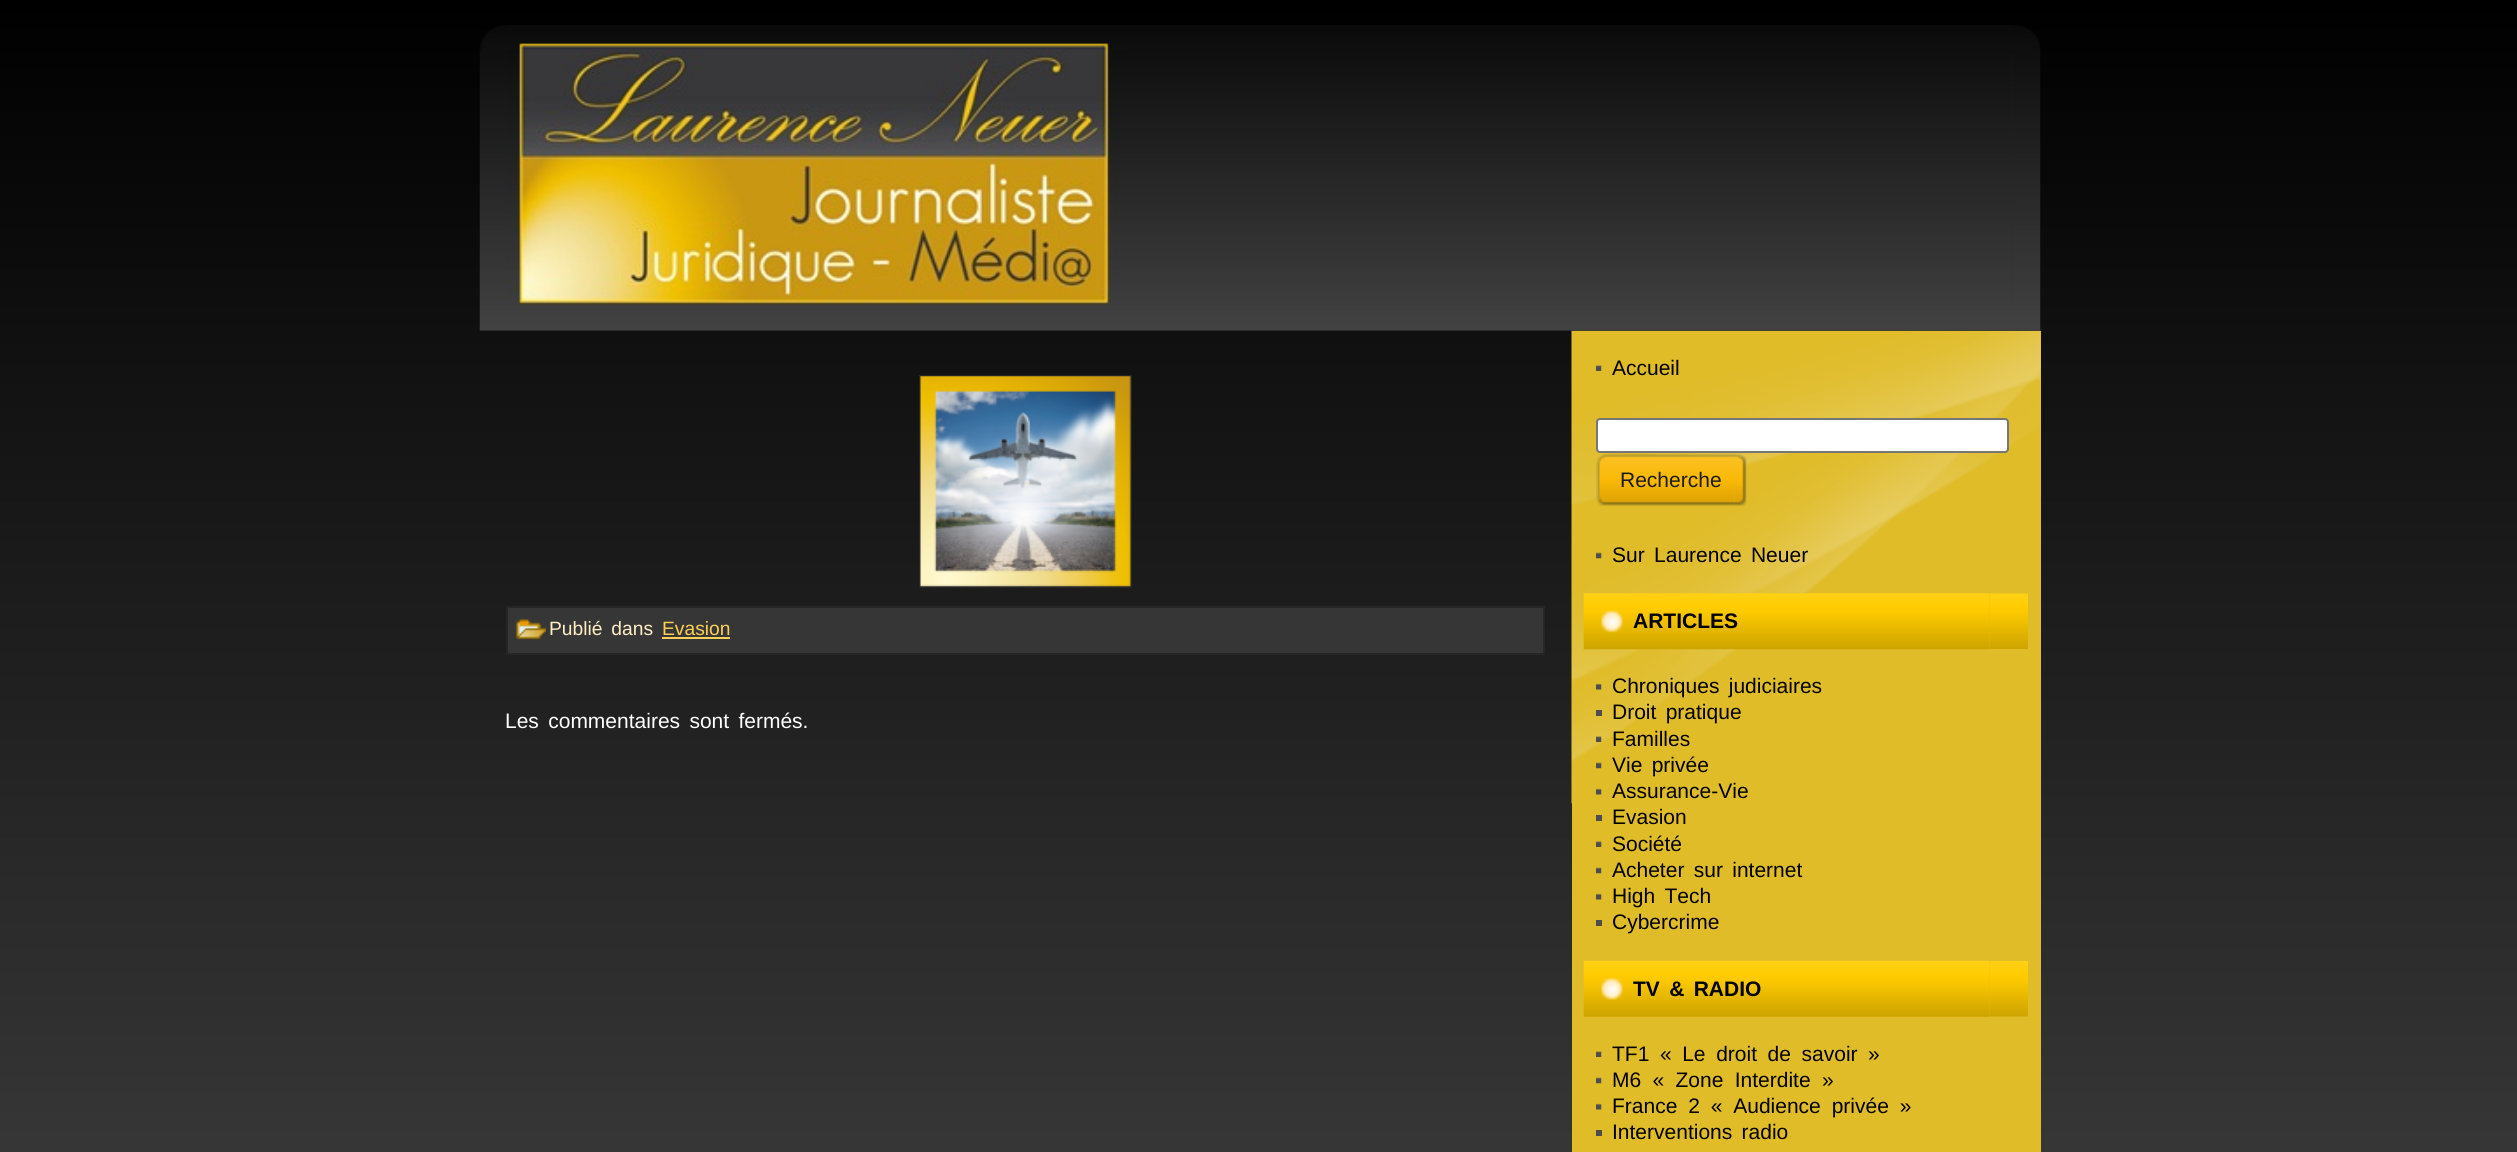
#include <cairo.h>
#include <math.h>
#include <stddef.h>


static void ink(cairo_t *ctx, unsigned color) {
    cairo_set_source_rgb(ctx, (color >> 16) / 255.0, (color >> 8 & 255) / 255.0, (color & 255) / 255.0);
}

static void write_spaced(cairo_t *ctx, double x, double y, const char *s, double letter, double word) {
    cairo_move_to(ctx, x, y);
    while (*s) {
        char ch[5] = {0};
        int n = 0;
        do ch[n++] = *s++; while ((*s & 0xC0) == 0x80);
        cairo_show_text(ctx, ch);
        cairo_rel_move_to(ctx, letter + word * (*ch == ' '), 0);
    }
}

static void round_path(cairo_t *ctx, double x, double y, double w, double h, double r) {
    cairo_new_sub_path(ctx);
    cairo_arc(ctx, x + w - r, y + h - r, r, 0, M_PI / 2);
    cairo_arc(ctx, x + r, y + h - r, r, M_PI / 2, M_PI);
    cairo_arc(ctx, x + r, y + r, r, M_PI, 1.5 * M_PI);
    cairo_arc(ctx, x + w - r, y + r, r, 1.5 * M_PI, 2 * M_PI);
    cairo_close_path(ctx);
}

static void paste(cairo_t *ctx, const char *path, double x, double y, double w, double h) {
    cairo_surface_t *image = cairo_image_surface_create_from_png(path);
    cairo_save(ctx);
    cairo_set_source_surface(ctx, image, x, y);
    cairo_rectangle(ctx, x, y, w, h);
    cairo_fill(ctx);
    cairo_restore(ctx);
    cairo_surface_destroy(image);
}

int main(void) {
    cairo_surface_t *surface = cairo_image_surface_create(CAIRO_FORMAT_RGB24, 2517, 1152);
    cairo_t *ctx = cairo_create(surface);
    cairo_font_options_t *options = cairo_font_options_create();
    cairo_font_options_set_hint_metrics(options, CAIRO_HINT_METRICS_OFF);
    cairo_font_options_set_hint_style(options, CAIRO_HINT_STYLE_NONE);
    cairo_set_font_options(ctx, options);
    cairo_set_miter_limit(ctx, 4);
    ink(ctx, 0xFFFFFF);
    cairo_paint(ctx);
    paste(ctx, "media/1.png", 0, 0, 2517, 1152);
    ink(ctx, 0xE0BC29);
    cairo_rectangle(ctx, 1572, 331, 469, 821);
    cairo_fill(ctx);
    paste(ctx, "media/6.png", 1571, 330, 470, 474);
    paste(ctx, "media/2.png", 479, 25, 1562, 306);
    paste(ctx, "media/3.png", 506, 50, 1505, 255);
    cairo_rectangle(ctx, 920, 376, 211, 211);
    ink(ctx, 0x262626);
    cairo_stroke(ctx);
    paste(ctx, "media/4.png", 920, 376, 211, 211);
    ink(ctx, 0x363636);
    cairo_rectangle(ctx, 507, 607, 1037, 47);
    cairo_fill_preserve(ctx);
    ink(ctx, 0x262626);
    cairo_stroke(ctx);
    paste(ctx, "media/5.png", 515, 619, 31, 21);
    cairo_select_font_face(ctx, "Liberation Sans", CAIRO_FONT_SLANT_NORMAL, CAIRO_FONT_WEIGHT_NORMAL);
    cairo_set_font_size(ctx, 19.25);
    ink(ctx, 0xFEEEC3);
    write_spaced(ctx, 549, 635, "Publié dans", 0, 3.5);
    ink(ctx, 0xFCCF55);
    cairo_move_to(ctx, 662, 635);
    cairo_show_text(ctx, "Evasion");
    cairo_rectangle(ctx, 662, 637, 68, 2);
    cairo_fill(ctx);
    cairo_set_font_size(ctx, 21);
    ink(ctx, 0xFFFFFF);
    write_spaced(ctx, 505, 728, "Les commentaires sont fermés.", 0, 3.5);
    paste(ctx, "media/7.png", 1596, 365, 6, 6);
    ink(ctx, 0x000000);
    cairo_move_to(ctx, 1612, 375);
    cairo_show_text(ctx, "Accueil");
    ink(ctx, 0xFFFFFF);
    round_path(ctx, 1597, 419, 411, 33, 3);
    cairo_fill_preserve(ctx);
    ink(ctx, 0x767676);
    cairo_stroke(ctx);
    paste(ctx, "media/8.png", 1596, 453, 139, 53);
    paste(ctx, "media/9.png", 1734, 453, 13, 53);
    ink(ctx, 0x1C1C1C);
    cairo_move_to(ctx, 1620, 487);
    cairo_show_text(ctx, "Recherche");
    paste(ctx, "media/10.png", 1596, 552, 6, 7);
    ink(ctx, 0x000000);
    write_spaced(ctx, 1612, 562, "Sur Laurence Neuer", 0, 3.5);
    paste(ctx, "media/11.png", 1583, 593, 407, 57);
    paste(ctx, "media/12.png", 1990, 593, 38, 56);
    cairo_select_font_face(ctx, "Liberation Sans", CAIRO_FONT_SLANT_NORMAL, CAIRO_FONT_WEIGHT_BOLD);
    cairo_move_to(ctx, 1633, 628);
    cairo_show_text(ctx, "ARTICLES");
    paste(ctx, "media/13.png", 1596, 683, 6, 7);
    cairo_select_font_face(ctx, "Liberation Sans", CAIRO_FONT_SLANT_NORMAL, CAIRO_FONT_WEIGHT_NORMAL);
    write_spaced(ctx, 1612, 693, "Chroniques judiciaires", 0, 3.5);
    ink(ctx, 0x4D4D4D);
    cairo_rectangle(ctx, 1596, 710, 6, 6);
    cairo_fill(ctx);
    ink(ctx, 0x000000);
    write_spaced(ctx, 1612, 719, "Droit pratique", 0, 3.5);
    paste(ctx, "media/14.png", 1596, 736, 6, 6);
    cairo_move_to(ctx, 1612, 746);
    cairo_show_text(ctx, "Familles");
    paste(ctx, "media/10.png", 1596, 762, 6, 7);
    write_spaced(ctx, 1612, 772, "Vie privée", 0, 3.5);
    paste(ctx, "media/15.png", 1596, 788, 6, 7);
    cairo_move_to(ctx, 1612, 798);
    cairo_show_text(ctx, "Assurance-Vie");
    ink(ctx, 0x4D4D4D);
    cairo_rectangle(ctx, 1596, 815, 6, 6);
    cairo_fill(ctx);
    ink(ctx, 0x000000);
    cairo_move_to(ctx, 1612, 824);
    cairo_show_text(ctx, "Evasion");
    paste(ctx, "media/7.png", 1596, 841, 6, 6);
    cairo_move_to(ctx, 1612, 851);
    cairo_show_text(ctx, "Société");
    paste(ctx, "media/10.png", 1596, 867, 6, 7);
    write_spaced(ctx, 1612, 877, "Acheter sur internet", 0, 3.5);
    paste(ctx, "media/15.png", 1596, 893, 6, 7);
    write_spaced(ctx, 1612, 903, "High Tech", 0, 3.5);
    ink(ctx, 0x4D4D4D);
    cairo_rectangle(ctx, 1596, 920, 6, 6);
    cairo_fill(ctx);
    ink(ctx, 0x000000);
    cairo_move_to(ctx, 1612, 929);
    cairo_show_text(ctx, "Cybercrime");
    paste(ctx, "media/16.png", 1583, 960, 407, 57);
    paste(ctx, "media/17.png", 1990, 961, 38, 56);
    cairo_select_font_face(ctx, "Liberation Sans", CAIRO_FONT_SLANT_NORMAL, CAIRO_FONT_WEIGHT_BOLD);
    write_spaced(ctx, 1633, 996, "TV & RADIO", 0, 3.5);
    paste(ctx, "media/7.png", 1596, 1051, 6, 6);
    cairo_select_font_face(ctx, "Liberation Sans", CAIRO_FONT_SLANT_NORMAL, CAIRO_FONT_WEIGHT_NORMAL);
    write_spaced(ctx, 1612, 1061, "TF1 « Le droit de savoir »", 0, 4.75);
    paste(ctx, "media/10.png", 1596, 1077, 6, 7);
    write_spaced(ctx, 1612, 1087, "M6 « Zone Interdite »", 0, 5.5);
    paste(ctx, "media/15.png", 1596, 1103, 6, 7);
    write_spaced(ctx, 1612, 1113, "France 2 « Audience privée »", 0, 5);
    ink(ctx, 0x4D4D4D);
    cairo_rectangle(ctx, 1596, 1130, 6, 6);
    cairo_fill(ctx);
    ink(ctx, 0x000000);
    write_spaced(ctx, 1612, 1139, "Interventions radio", 0, 3.5);
    cairo_surface_write_to_png(surface, "image.png");
    cairo_font_options_destroy(options);
    cairo_destroy(ctx);
    cairo_surface_destroy(surface);
    return 0;
}
